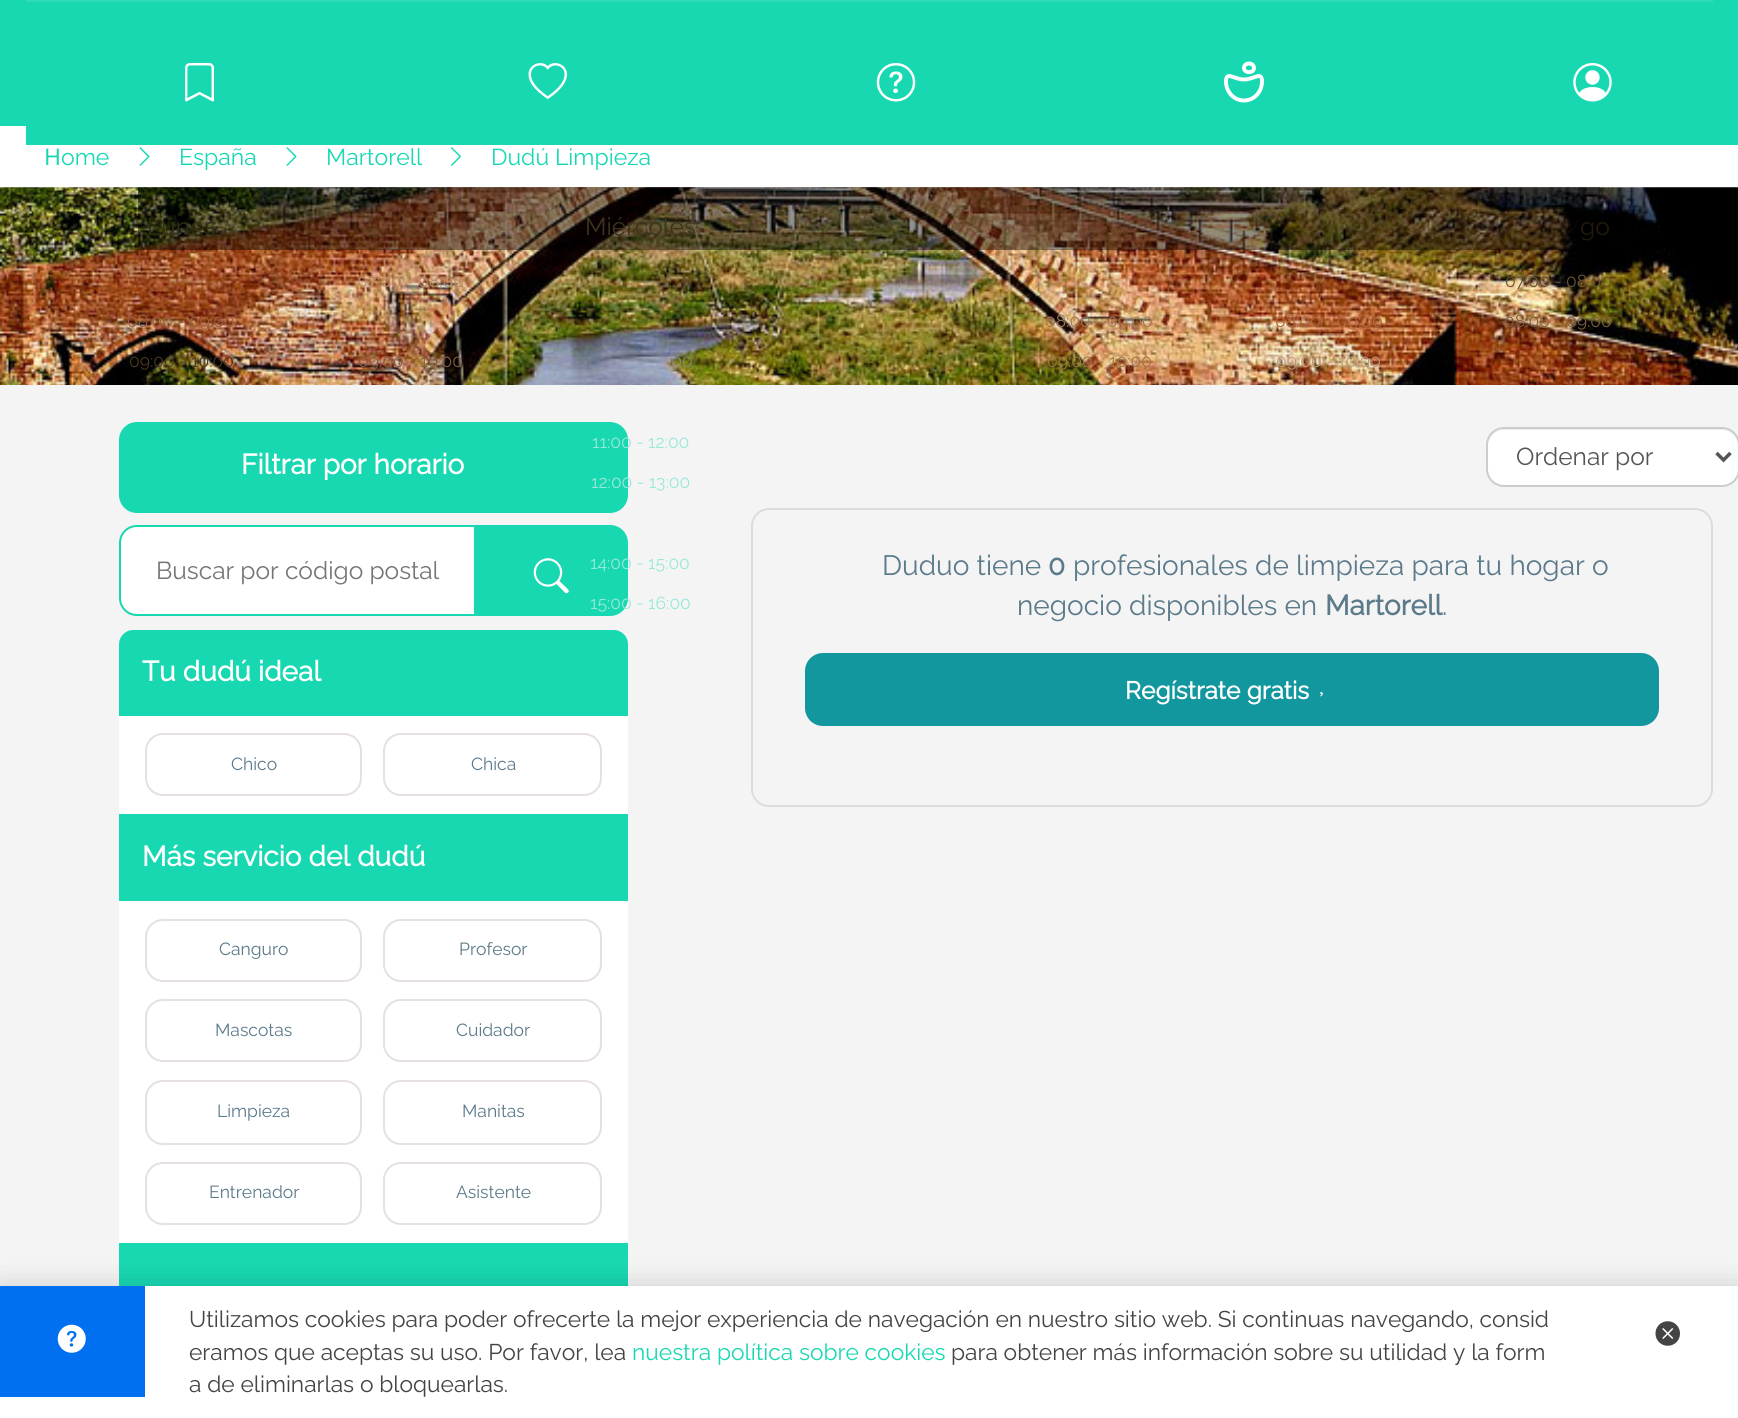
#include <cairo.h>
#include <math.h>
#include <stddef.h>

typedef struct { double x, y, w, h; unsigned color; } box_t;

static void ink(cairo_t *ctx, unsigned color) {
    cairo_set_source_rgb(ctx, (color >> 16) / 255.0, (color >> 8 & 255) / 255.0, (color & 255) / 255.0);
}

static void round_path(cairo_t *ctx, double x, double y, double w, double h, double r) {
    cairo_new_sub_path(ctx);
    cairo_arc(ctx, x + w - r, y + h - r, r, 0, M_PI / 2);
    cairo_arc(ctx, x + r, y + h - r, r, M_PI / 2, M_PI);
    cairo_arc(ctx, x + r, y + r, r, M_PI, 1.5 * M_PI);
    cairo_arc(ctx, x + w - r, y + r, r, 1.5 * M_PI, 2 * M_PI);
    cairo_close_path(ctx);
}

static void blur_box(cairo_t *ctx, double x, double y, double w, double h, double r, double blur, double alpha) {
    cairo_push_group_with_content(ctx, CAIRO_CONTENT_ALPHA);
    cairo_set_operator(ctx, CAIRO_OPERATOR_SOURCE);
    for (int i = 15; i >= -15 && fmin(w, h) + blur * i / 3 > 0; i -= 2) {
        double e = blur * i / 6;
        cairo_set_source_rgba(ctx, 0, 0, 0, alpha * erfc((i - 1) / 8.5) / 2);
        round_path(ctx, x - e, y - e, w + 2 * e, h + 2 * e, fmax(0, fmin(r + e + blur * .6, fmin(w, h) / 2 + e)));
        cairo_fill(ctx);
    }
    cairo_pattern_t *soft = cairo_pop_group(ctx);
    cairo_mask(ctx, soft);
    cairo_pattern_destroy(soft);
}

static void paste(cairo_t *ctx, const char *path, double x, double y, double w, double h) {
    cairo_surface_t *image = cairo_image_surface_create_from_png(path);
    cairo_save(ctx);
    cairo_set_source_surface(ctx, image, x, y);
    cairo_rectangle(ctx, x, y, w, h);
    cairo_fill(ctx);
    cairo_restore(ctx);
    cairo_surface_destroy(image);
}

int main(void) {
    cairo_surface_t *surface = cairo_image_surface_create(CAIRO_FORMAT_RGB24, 1738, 1418);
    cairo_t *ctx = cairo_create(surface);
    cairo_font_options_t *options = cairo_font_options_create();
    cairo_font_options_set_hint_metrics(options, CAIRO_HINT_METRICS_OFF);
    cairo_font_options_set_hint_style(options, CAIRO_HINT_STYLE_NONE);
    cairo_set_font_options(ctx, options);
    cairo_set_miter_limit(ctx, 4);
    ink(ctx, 0xFFFFFF);
    cairo_paint(ctx);
    {
        static const box_t items[] = {
            {0, 0, 1738, 126, 0x18D8B2},
            {26, 0, 1687, 2, 0x2FDCBA},
            {26, 126, 1712, 19, 0x18D8B2},
        };
        for (size_t i = 0; i < sizeof items / sizeof *items; i++) {
            ink(ctx, items[i].color);
            cairo_rectangle(ctx, items[i].x, items[i].y, items[i].w, items[i].h);
            cairo_fill(ctx);
        }
    }
    paste(ctx, "media/1.png", 185, 63, 29, 39);
    paste(ctx, "media/2.png", 528, 63, 39, 36);
    paste(ctx, "media/3.png", 876, 63, 40, 39);
    cairo_new_path(ctx);
    cairo_move_to(ctx, 1226, 81.5);
    cairo_curve_to(ctx, 1226, 92, 1234, 100.5, 1244, 100.5);
    cairo_curve_to(ctx, 1254, 100.5, 1262, 92, 1262, 81.5);
    cairo_curve_to(ctx, 1262, 70.5, 1254, 79.5, 1244, 79.5);
    cairo_curve_to(ctx, 1234, 79.5, 1226, 70.5, 1226, 81.5);
    cairo_close_path(ctx);
    cairo_move_to(ctx, 1244, 68);
    cairo_curve_to(ctx, 1244, 73.5, 1254, 73.5, 1254, 68);
    cairo_curve_to(ctx, 1254, 62, 1244, 62, 1244, 68);
    cairo_close_path(ctx);
    ink(ctx, 0xFFFFFF);
    cairo_set_line_width(ctx, 3.9);
    cairo_stroke(ctx);
    paste(ctx, "media/4.png", 1573, 63, 39, 39);
    cairo_select_font_face(ctx, "Noto Sans", CAIRO_FONT_SLANT_NORMAL, CAIRO_FONT_WEIGHT_NORMAL);
    cairo_set_font_size(ctx, 23);
    ink(ctx, 0x18D8B2);
    cairo_move_to(ctx, 44, 165);
    cairo_show_text(ctx, "H");
    cairo_select_font_face(ctx, "Raleway Thin", CAIRO_FONT_SLANT_NORMAL, CAIRO_FONT_WEIGHT_NORMAL);
    cairo_move_to(ctx, 61, 165);
    cairo_show_text(ctx, "ome");
    paste(ctx, "media/5.png", 139, 147, 11, 19);
    cairo_move_to(ctx, 179, 165);
    cairo_show_text(ctx, "España");
    paste(ctx, "media/5.png", 286, 147, 11, 19);
    cairo_move_to(ctx, 326, 165);
    cairo_show_text(ctx, "Martorell");
    paste(ctx, "media/6.png", 451, 147, 10, 19);
    cairo_move_to(ctx, 491, 165);
    cairo_show_text(ctx, "Dudú Limpieza");
    paste(ctx, "media/7.png", 0, 187, 1738, 198);
    cairo_set_source_rgba(ctx, 0, 0, 0, 0.42);
    cairo_rectangle(ctx, 138, 187, 1462, 63);
    cairo_fill(ctx);
    ink(ctx, 0xF5F4F5);
    cairo_rectangle(ctx, 0, 385, 1738, 901);
    cairo_fill(ctx);
    cairo_set_font_size(ctx, 24.5);
    ink(ctx, 0x2E2E15);
    cairo_move_to(ctx, 147, 235);
    cairo_show_text(ctx, "Lunes");
    cairo_set_font_size(ctx, 17.5);
    ink(ctx, 0x9E5D3A);
    cairo_move_to(ctx, 127, 327);
    cairo_show_text(ctx, "08:00 - 09:00");
    ink(ctx, 0x483921);
    cairo_move_to(ctx, 129, 367);
    cairo_show_text(ctx, "09:00 - 10:00");
    ink(ctx, 0xB88864);
    cairo_move_to(ctx, 357, 287);
    cairo_show_text(ctx, "07:00 - 08:00");
    ink(ctx, 0x855B42);
    cairo_move_to(ctx, 358, 367);
    cairo_show_text(ctx, "09:00 - 10:00");
    cairo_set_font_size(ctx, 24.5);
    ink(ctx, 0x3C321E);
    cairo_move_to(ctx, 585, 235);
    cairo_show_text(ctx, "Miércoles");
    cairo_set_font_size(ctx, 17.5);
    ink(ctx, 0x70612E);
    cairo_move_to(ctx, 669, 287);
    cairo_show_text(ctx, ":");
    ink(ctx, 0x605B1D);
    cairo_move_to(ctx, 637, 327);
    cairo_show_text(ctx, "-");
    ink(ctx, 0x848885);
    cairo_move_to(ctx, 668, 367);
    cairo_show_text(ctx, ":00");
    ink(ctx, 0x18D8B2);
    round_path(ctx, 119, 422, 509, 91, 18);
    cairo_fill(ctx);
    ink(ctx, 0x98E8D9);
    cairo_move_to(ctx, 592, 448);
    cairo_show_text(ctx, "11:00 - 12:00");
    cairo_move_to(ctx, 591, 488);
    cairo_show_text(ctx, "12:00 - 13:00");
    ink(ctx, 0x18D8B2);
    cairo_new_path(ctx);
    cairo_move_to(ctx, 477, 526);
    cairo_line_to(ctx, 610, 526);
    cairo_curve_to(ctx, 619.5, 526, 627, 533.5, 627, 543);
    cairo_line_to(ctx, 627, 598);
    cairo_curve_to(ctx, 627, 607.5, 619.5, 615, 610, 615);
    cairo_line_to(ctx, 477, 615);
    cairo_close_path(ctx);
    cairo_fill_preserve(ctx);
    cairo_set_line_width(ctx, 2);
    cairo_stroke(ctx);
    ink(ctx, 0x98E8D9);
    cairo_move_to(ctx, 590, 569);
    cairo_show_text(ctx, "14:00 - 15:00");
    cairo_move_to(ctx, 590, 609);
    cairo_show_text(ctx, "15:00 - 16:00");
    ink(ctx, 0x867749);
    cairo_move_to(ctx, 836, 287);
    cairo_show_text(ctx, ":");
    cairo_move_to(ctx, 898, 287);
    cairo_show_text(ctx, ":");
    ink(ctx, 0x85772A);
    cairo_move_to(ctx, 899, 327);
    cairo_show_text(ctx, ":");
    cairo_move_to(ctx, 867, 367);
    cairo_show_text(ctx, "-");
    ink(ctx, 0xC18758);
    cairo_move_to(ctx, 1128, 287);
    cairo_show_text(ctx, ":");
    ink(ctx, 0x9F7854);
    cairo_move_to(ctx, 1045, 327);
    cairo_show_text(ctx, "08:00 - 09:00");
    ink(ctx, 0x9E7840);
    cairo_move_to(ctx, 1047, 367);
    cairo_show_text(ctx, "09:00 - 10:00");
    ink(ctx, 0xB1683E);
    cairo_move_to(ctx, 1275, 327);
    cairo_show_text(ctx, "08:00 - 09:00");
    ink(ctx, 0xC09A74);
    cairo_move_to(ctx, 1276, 367);
    cairo_show_text(ctx, "09:00 - 10:00");
    cairo_set_font_size(ctx, 24.5);
    ink(ctx, 0x23180C);
    cairo_move_to(ctx, 1580, 235);
    cairo_show_text(ctx, "go");
    cairo_set_font_size(ctx, 17.5);
    ink(ctx, 0x695631);
    cairo_move_to(ctx, 1505, 287);
    cairo_show_text(ctx, "07:00 - 08:00");
    ink(ctx, 0x7C5E3C);
    cairo_move_to(ctx, 1504, 327);
    cairo_show_text(ctx, "08:00 - 09:00");
    cairo_select_font_face(ctx, "Raleway", CAIRO_FONT_SLANT_NORMAL, CAIRO_FONT_WEIGHT_BOLD);
    cairo_set_font_size(ctx, 28);
    ink(ctx, 0xFFFFFF);
    cairo_move_to(ctx, 241, 474);
    cairo_show_text(ctx, "Filtrar por horario");
    cairo_new_path(ctx);
    cairo_move_to(ctx, 137, 526);
    cairo_line_to(ctx, 475, 526);
    cairo_line_to(ctx, 475, 615);
    cairo_line_to(ctx, 137, 615);
    cairo_curve_to(ctx, 127.5, 615, 120, 607.5, 120, 598);
    cairo_line_to(ctx, 120, 543);
    cairo_curve_to(ctx, 120, 533.5, 127.5, 526, 137, 526);
    cairo_close_path(ctx);
    cairo_fill_preserve(ctx);
    ink(ctx, 0x18D8B2);
    cairo_stroke(ctx);
    cairo_select_font_face(ctx, "Raleway Thin", CAIRO_FONT_SLANT_NORMAL, CAIRO_FONT_WEIGHT_NORMAL);
    cairo_set_font_size(ctx, 24.5);
    ink(ctx, 0x757575);
    cairo_move_to(ctx, 156, 579);
    cairo_show_text(ctx, "Buscar por código postal");
    paste(ctx, "media/8.png", 533, 558, 36, 36);
    ink(ctx, 0xFFFFFF);
    round_path(ctx, 119, 630, 509, 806, 18);
    cairo_fill(ctx);
    ink(ctx, 0x18D8B2);
    cairo_new_path(ctx);
    cairo_move_to(ctx, 133, 630);
    cairo_line_to(ctx, 614, 630);
    cairo_curve_to(ctx, 621.5, 630, 628, 636.5, 628, 644);
    cairo_line_to(ctx, 628, 716);
    cairo_line_to(ctx, 119, 716);
    cairo_line_to(ctx, 119, 644);
    cairo_curve_to(ctx, 119, 636.5, 125.5, 630, 133, 630);
    cairo_close_path(ctx);
    cairo_fill(ctx);
    cairo_select_font_face(ctx, "Raleway", CAIRO_FONT_SLANT_NORMAL, CAIRO_FONT_WEIGHT_BOLD);
    cairo_set_font_size(ctx, 28);
    ink(ctx, 0xFFFFFF);
    cairo_move_to(ctx, 142, 681);
    cairo_show_text(ctx, "Tu dudú ideal");
    round_path(ctx, 146, 734, 215, 61, 17);
    ink(ctx, 0xE6E0E0);
    cairo_stroke(ctx);
    cairo_select_font_face(ctx, "Raleway Thin", CAIRO_FONT_SLANT_NORMAL, CAIRO_FONT_WEIGHT_NORMAL);
    cairo_set_font_size(ctx, 17.5);
    ink(ctx, 0x5B7A8A);
    cairo_move_to(ctx, 231, 770);
    cairo_show_text(ctx, "Chico");
    round_path(ctx, 384, 734, 217, 61, 17);
    ink(ctx, 0xE6E0E0);
    cairo_stroke(ctx);
    ink(ctx, 0x5B7A8A);
    cairo_move_to(ctx, 471, 770);
    cairo_show_text(ctx, "Chica");
    ink(ctx, 0x18D8B2);
    cairo_rectangle(ctx, 119, 814, 509, 87);
    cairo_fill(ctx);
    cairo_select_font_face(ctx, "Raleway", CAIRO_FONT_SLANT_NORMAL, CAIRO_FONT_WEIGHT_BOLD);
    cairo_set_font_size(ctx, 28);
    ink(ctx, 0xFFFFFF);
    cairo_move_to(ctx, 142, 866);
    cairo_show_text(ctx, "Más servicio del dudú");
    round_path(ctx, 146, 920, 215, 61, 17);
    ink(ctx, 0xE6E0E0);
    cairo_stroke(ctx);
    cairo_select_font_face(ctx, "Raleway Thin", CAIRO_FONT_SLANT_NORMAL, CAIRO_FONT_WEIGHT_NORMAL);
    cairo_set_font_size(ctx, 17.5);
    ink(ctx, 0x5B7A8A);
    cairo_move_to(ctx, 219, 955);
    cairo_show_text(ctx, "Canguro");
    round_path(ctx, 384, 920, 217, 61, 17);
    ink(ctx, 0xE6E0E0);
    cairo_stroke(ctx);
    ink(ctx, 0x5B7A8A);
    cairo_move_to(ctx, 459, 955);
    cairo_show_text(ctx, "Profesor");
    round_path(ctx, 146, 1000, 215, 61, 17);
    ink(ctx, 0xE6E0E0);
    cairo_stroke(ctx);
    ink(ctx, 0x5B7A8A);
    cairo_move_to(ctx, 215, 1036);
    cairo_show_text(ctx, "Mascotas");
    round_path(ctx, 384, 1000, 217, 61, 17);
    ink(ctx, 0xE6E0E0);
    cairo_stroke(ctx);
    ink(ctx, 0x5B7A8A);
    cairo_move_to(ctx, 456, 1036);
    cairo_show_text(ctx, "Cuidador");
    round_path(ctx, 146, 1081, 215, 63, 17);
    ink(ctx, 0xE6E0E0);
    cairo_stroke(ctx);
    ink(ctx, 0x5B7A8A);
    cairo_move_to(ctx, 217, 1117);
    cairo_show_text(ctx, "Limpieza");
    round_path(ctx, 384, 1081, 217, 63, 17);
    ink(ctx, 0xE6E0E0);
    cairo_stroke(ctx);
    ink(ctx, 0x5B7A8A);
    cairo_move_to(ctx, 462, 1117);
    cairo_show_text(ctx, "Manitas");
    round_path(ctx, 146, 1163, 215, 61, 17);
    ink(ctx, 0xE6E0E0);
    cairo_stroke(ctx);
    ink(ctx, 0x5B7A8A);
    cairo_move_to(ctx, 209, 1198);
    cairo_show_text(ctx, "Entrenador");
    round_path(ctx, 384, 1163, 217, 61, 17);
    ink(ctx, 0xE6E0E0);
    cairo_stroke(ctx);
    ink(ctx, 0x5B7A8A);
    cairo_move_to(ctx, 456, 1198);
    cairo_show_text(ctx, "Asistente");
    ink(ctx, 0x18D8B2);
    cairo_rectangle(ctx, 119, 1243, 509, 43);
    cairo_fill(ctx);
    ink(ctx, 0xFFFFFF);
    round_path(ctx, 1486, 427, 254, 60, 18);
    cairo_fill(ctx);
    ink(ctx, 0xECECEC);
    cairo_new_path(ctx);
    cairo_move_to(ctx, 1503, 430);
    cairo_line_to(ctx, 1722, 430);
    cairo_curve_to(ctx, 1731, 430, 1738, 438, 1738, 446);
    cairo_line_to(ctx, 1738, 445);
    cairo_curve_to(ctx, 1738, 436, 1731, 429, 1722, 429);
    cairo_line_to(ctx, 1504, 429);
    cairo_curve_to(ctx, 1495, 429, 1488, 436, 1488, 445);
    cairo_line_to(ctx, 1488, 446);
    cairo_curve_to(ctx, 1488, 438, 1495, 430, 1503, 430);
    cairo_close_path(ctx);
    cairo_fill(ctx);
    round_path(ctx, 1487, 428, 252, 58, 17);
    ink(ctx, 0xCCCCCC);
    cairo_stroke(ctx);
    cairo_new_path(ctx);
    cairo_move_to(ctx, 1716.5, 453);
    cairo_line_to(ctx, 1723.5, 460);
    cairo_line_to(ctx, 1730.5, 453);
    ink(ctx, 0x555555);
    cairo_set_line_width(ctx, 3.5);
    cairo_stroke(ctx);
    cairo_set_font_size(ctx, 24.5);
    cairo_move_to(ctx, 1516, 465);
    cairo_show_text(ctx, "Ordenar por");
    round_path(ctx, 752, 509, 960, 297, 17);
    ink(ctx, 0xDDDCDD);
    cairo_set_line_width(ctx, 2);
    cairo_stroke(ctx);
    cairo_set_font_size(ctx, 28);
    ink(ctx, 0x5B7A8A);
    cairo_move_to(ctx, 882, 575);
    cairo_show_text(ctx, "Duduo tiene");
    cairo_select_font_face(ctx, "Raleway", CAIRO_FONT_SLANT_NORMAL, CAIRO_FONT_WEIGHT_BOLD);
    cairo_move_to(ctx, 1048, 575);
    cairo_show_text(ctx, "0");
    cairo_select_font_face(ctx, "Raleway Thin", CAIRO_FONT_SLANT_NORMAL, CAIRO_FONT_WEIGHT_NORMAL);
    cairo_move_to(ctx, 1073, 575);
    cairo_show_text(ctx, "profesionales de limpieza para tu hogar o");
    cairo_move_to(ctx, 1017, 615);
    cairo_show_text(ctx, "negocio disponibles en");
    cairo_select_font_face(ctx, "Raleway", CAIRO_FONT_SLANT_NORMAL, CAIRO_FONT_WEIGHT_BOLD);
    cairo_move_to(ctx, 1325, 615);
    cairo_show_text(ctx, "Martorell");
    cairo_select_font_face(ctx, "Raleway Thin", CAIRO_FONT_SLANT_NORMAL, CAIRO_FONT_WEIGHT_NORMAL);
    cairo_move_to(ctx, 1442, 615);
    cairo_show_text(ctx, ".");
    ink(ctx, 0x13979E);
    round_path(ctx, 806, 654, 852, 71, 17);
    cairo_fill_preserve(ctx);
    cairo_stroke(ctx);
    cairo_select_font_face(ctx, "Raleway", CAIRO_FONT_SLANT_NORMAL, CAIRO_FONT_WEIGHT_BOLD);
    cairo_set_font_size(ctx, 24.5);
    ink(ctx, 0xFFFFFF);
    cairo_move_to(ctx, 1125, 699);
    cairo_show_text(ctx, "Regístrate gratis");
    paste(ctx, "media/9.png", 1320, 692, 3, 5);
    ink(ctx, 0x000000);
    blur_box(ctx, 0, 1286, 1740, 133, 0, 14, 0.16);
    ink(ctx, 0xFFFFFF);
    cairo_rectangle(ctx, 0, 1286, 1738, 132);
    cairo_fill(ctx);
    ink(ctx, 0x0070F0);
    cairo_rectangle(ctx, 0, 1286, 145, 111);
    cairo_fill(ctx);
    paste(ctx, "media/10.png", 57, 1324, 29, 29);
    cairo_select_font_face(ctx, "Raleway Thin", CAIRO_FONT_SLANT_NORMAL, CAIRO_FONT_WEIGHT_NORMAL);
    cairo_set_font_size(ctx, 22.75);
    ink(ctx, 0x444444);
    cairo_move_to(ctx, 189, 1327);
    cairo_show_text(ctx, "Utilizamos cookies para poder ofrecerte la mejor experiencia de navegación en nuestro sitio web. Si continuas navegando, consid");
    cairo_move_to(ctx, 189, 1360);
    cairo_show_text(ctx, "eramos que aceptas su uso. Por favor, lea");
    ink(ctx, 0x18D8B2);
    cairo_move_to(ctx, 632, 1360);
    cairo_show_text(ctx, "nuestra política sobre cookies");
    ink(ctx, 0x444444);
    cairo_move_to(ctx, 951, 1360);
    cairo_show_text(ctx, "para obtener más información sobre su utilidad y la form");
    cairo_move_to(ctx, 189, 1392);
    cairo_show_text(ctx, "a de eliminarlas o bloquearlas.");
    paste(ctx, "media/11.png", 1655, 1321, 25, 25);
    cairo_surface_write_to_png(surface, "image.png");
    cairo_font_options_destroy(options);
    cairo_destroy(ctx);
    cairo_surface_destroy(surface);
    return 0;
}
